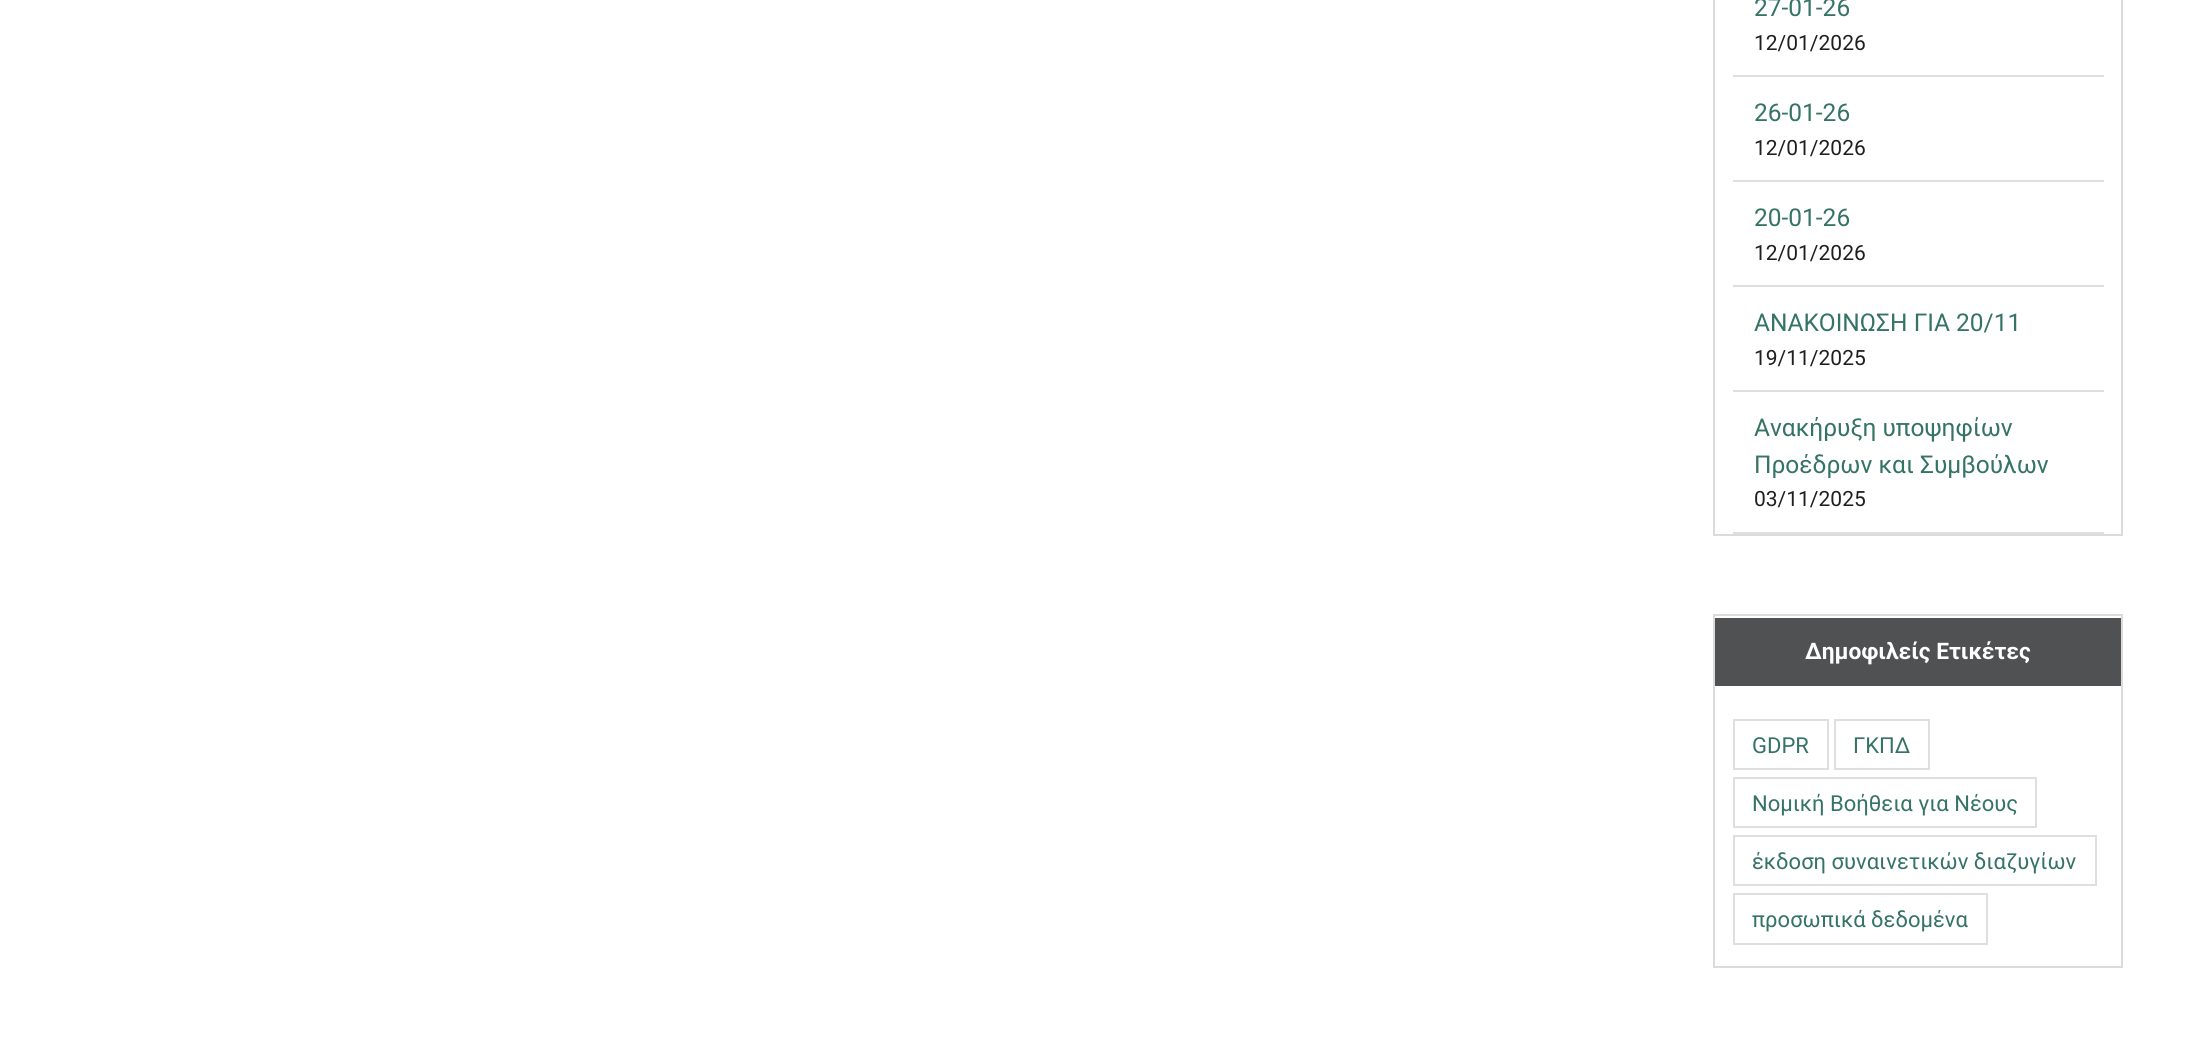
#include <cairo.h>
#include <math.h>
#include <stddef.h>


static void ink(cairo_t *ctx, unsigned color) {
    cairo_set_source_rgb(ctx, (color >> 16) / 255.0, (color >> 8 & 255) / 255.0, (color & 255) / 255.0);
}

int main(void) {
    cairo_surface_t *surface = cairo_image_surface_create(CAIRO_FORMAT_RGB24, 2197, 1054);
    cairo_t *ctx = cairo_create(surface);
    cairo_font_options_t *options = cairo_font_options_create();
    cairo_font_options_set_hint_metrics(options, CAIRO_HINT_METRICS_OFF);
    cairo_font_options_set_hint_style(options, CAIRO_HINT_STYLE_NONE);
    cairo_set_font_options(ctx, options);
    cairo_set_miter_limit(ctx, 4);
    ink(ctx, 0xFFFFFF);
    cairo_paint(ctx);
    cairo_rectangle(ctx, 1714, -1, 408, 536);
    ink(ctx, 0xDCDADB);
    cairo_stroke(ctx);
    ink(ctx, 0xE0DEDE);
    cairo_rectangle(ctx, 1733, 75, 371, 2);
    cairo_fill(ctx);
    cairo_select_font_face(ctx, "Roboto", CAIRO_FONT_SLANT_NORMAL, CAIRO_FONT_WEIGHT_NORMAL);
    cairo_set_font_size(ctx, 24.5);
    ink(ctx, 0x357364);
    cairo_move_to(ctx, 1754, 16);
    cairo_show_text(ctx, "27-01-26");
    cairo_set_font_size(ctx, 21);
    ink(ctx, 0x1F1F1F);
    cairo_move_to(ctx, 1754, 50);
    cairo_show_text(ctx, "12/01/2026");
    ink(ctx, 0xE0DEDE);
    cairo_rectangle(ctx, 1733, 180, 371, 2);
    cairo_fill(ctx);
    cairo_set_font_size(ctx, 24.5);
    ink(ctx, 0x357364);
    cairo_move_to(ctx, 1754, 121);
    cairo_show_text(ctx, "26-01-26");
    cairo_set_font_size(ctx, 21);
    ink(ctx, 0x1F1F1F);
    cairo_move_to(ctx, 1754, 155);
    cairo_show_text(ctx, "12/01/2026");
    ink(ctx, 0xE0DEDE);
    cairo_rectangle(ctx, 1733, 285, 371, 2);
    cairo_fill(ctx);
    cairo_set_font_size(ctx, 24.5);
    ink(ctx, 0x357364);
    cairo_move_to(ctx, 1754, 226);
    cairo_show_text(ctx, "20-01-26");
    cairo_set_font_size(ctx, 21);
    ink(ctx, 0x1F1F1F);
    cairo_move_to(ctx, 1754, 260);
    cairo_show_text(ctx, "12/01/2026");
    ink(ctx, 0xE0DEDE);
    cairo_rectangle(ctx, 1733, 390, 371, 2);
    cairo_fill(ctx);
    cairo_set_font_size(ctx, 24.5);
    ink(ctx, 0x357364);
    cairo_move_to(ctx, 1754, 331);
    cairo_show_text(ctx, "ΑΝΑΚΟΙΝΩΣΗ ΓΙΑ 20/11");
    cairo_set_font_size(ctx, 21);
    ink(ctx, 0x1F1F1F);
    cairo_move_to(ctx, 1754, 365);
    cairo_show_text(ctx, "19/11/2025");
    ink(ctx, 0xE0DEDE);
    cairo_rectangle(ctx, 1733, 532, 371, 2);
    cairo_fill(ctx);
    cairo_set_font_size(ctx, 24.5);
    ink(ctx, 0x357364);
    cairo_move_to(ctx, 1754, 436);
    cairo_show_text(ctx, "Ανακήρυξη υποψηφίων");
    cairo_move_to(ctx, 1754, 473);
    cairo_show_text(ctx, "Προέδρων και Συμβούλων");
    cairo_set_font_size(ctx, 21);
    ink(ctx, 0x1F1F1F);
    cairo_move_to(ctx, 1754, 506);
    cairo_show_text(ctx, "03/11/2025");
    cairo_rectangle(ctx, 1714, 615, 408, 352);
    ink(ctx, 0xDCDADB);
    cairo_stroke(ctx);
    ink(ctx, 0x505152);
    cairo_rectangle(ctx, 1715, 618, 406, 68);
    cairo_fill(ctx);
    cairo_select_font_face(ctx, "Roboto", CAIRO_FONT_SLANT_NORMAL, CAIRO_FONT_WEIGHT_BOLD);
    cairo_set_font_size(ctx, 22.75);
    ink(ctx, 0xFFFFFF);
    cairo_move_to(ctx, 1805, 659);
    cairo_show_text(ctx, "Δημοφιλείς Ετικέτες");
    cairo_rectangle(ctx, 1734, 720, 94, 49);
    ink(ctx, 0xE0DEDE);
    cairo_stroke(ctx);
    cairo_select_font_face(ctx, "Roboto", CAIRO_FONT_SLANT_NORMAL, CAIRO_FONT_WEIGHT_NORMAL);
    cairo_set_font_size(ctx, 22);
    ink(ctx, 0x357364);
    cairo_move_to(ctx, 1752, 753);
    cairo_show_text(ctx, "GDPR");
    cairo_rectangle(ctx, 1835, 720, 94, 49);
    ink(ctx, 0xE0DEDE);
    cairo_stroke(ctx);
    ink(ctx, 0x357364);
    cairo_move_to(ctx, 1853, 753);
    cairo_show_text(ctx, "ΓΚΠΔ");
    cairo_rectangle(ctx, 1734, 778, 302, 49);
    ink(ctx, 0xE0DEDE);
    cairo_stroke(ctx);
    ink(ctx, 0x357364);
    cairo_move_to(ctx, 1752, 811);
    cairo_show_text(ctx, "Νομική Βοήθεια για Νέους");
    cairo_rectangle(ctx, 1734, 836, 362, 49);
    ink(ctx, 0xE0DEDE);
    cairo_stroke(ctx);
    ink(ctx, 0x357364);
    cairo_move_to(ctx, 1752, 869);
    cairo_show_text(ctx, "έκδοση συναινετικών διαζυγίων");
    cairo_rectangle(ctx, 1734, 894, 253, 50);
    ink(ctx, 0xE0DEDE);
    cairo_stroke(ctx);
    ink(ctx, 0x357364);
    cairo_move_to(ctx, 1752, 927);
    cairo_show_text(ctx, "προσωπικά δεδομένα");
    cairo_surface_write_to_png(surface, "image.png");
    cairo_font_options_destroy(options);
    cairo_destroy(ctx);
    cairo_surface_destroy(surface);
    return 0;
}
